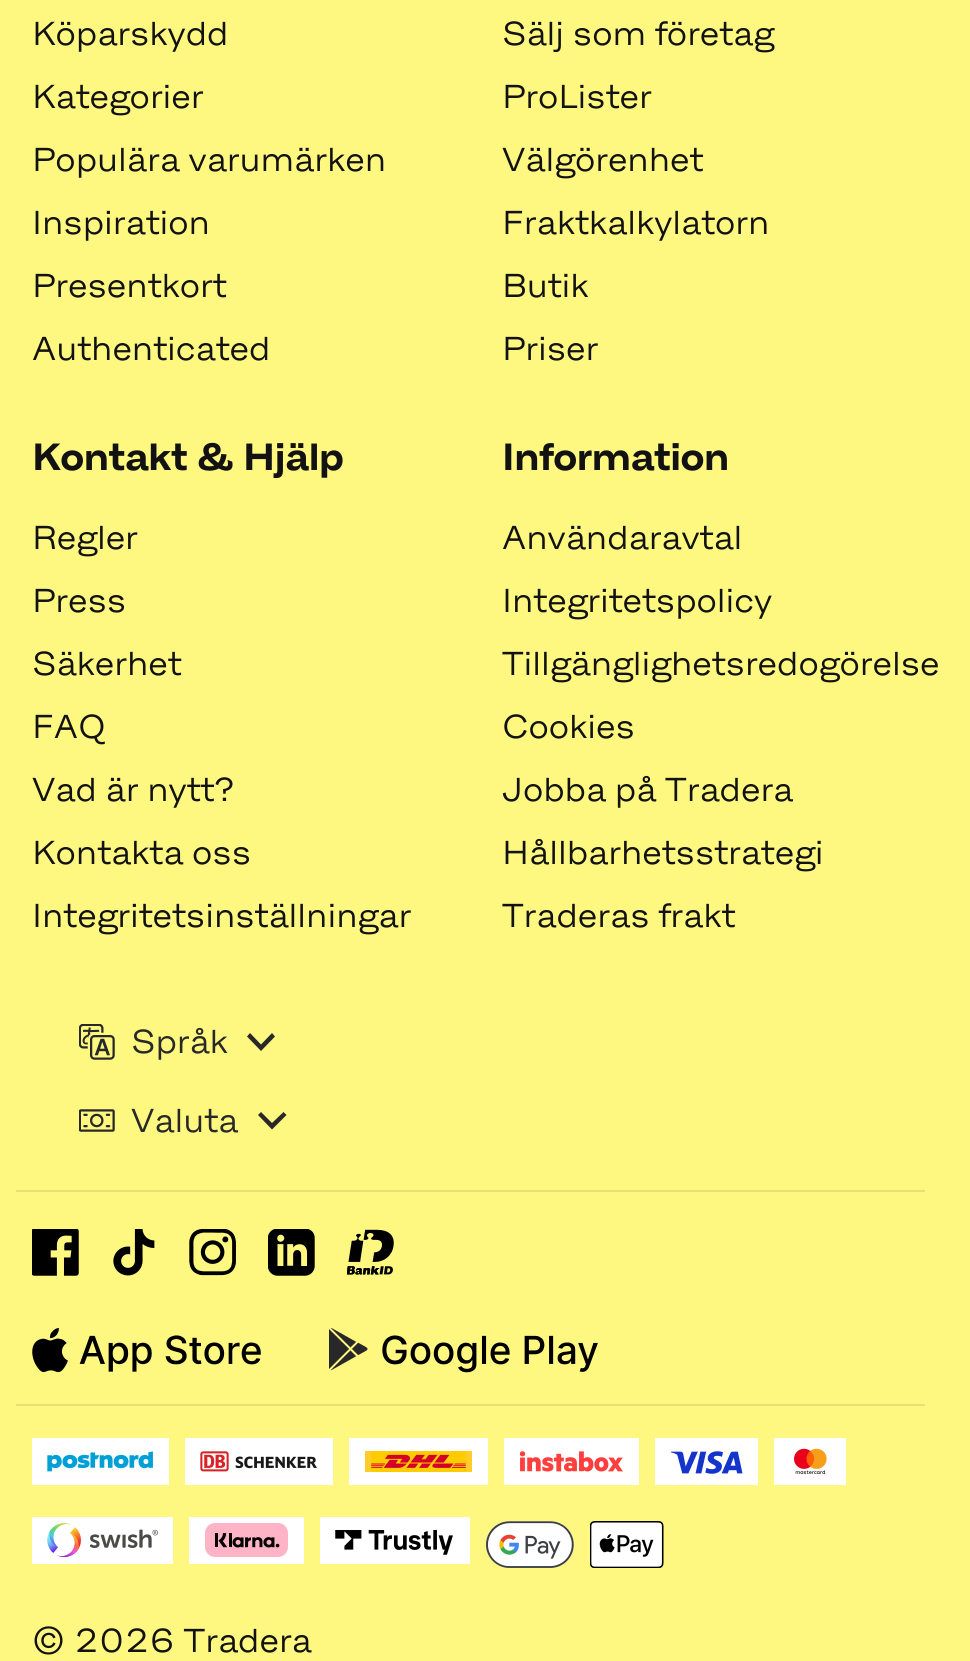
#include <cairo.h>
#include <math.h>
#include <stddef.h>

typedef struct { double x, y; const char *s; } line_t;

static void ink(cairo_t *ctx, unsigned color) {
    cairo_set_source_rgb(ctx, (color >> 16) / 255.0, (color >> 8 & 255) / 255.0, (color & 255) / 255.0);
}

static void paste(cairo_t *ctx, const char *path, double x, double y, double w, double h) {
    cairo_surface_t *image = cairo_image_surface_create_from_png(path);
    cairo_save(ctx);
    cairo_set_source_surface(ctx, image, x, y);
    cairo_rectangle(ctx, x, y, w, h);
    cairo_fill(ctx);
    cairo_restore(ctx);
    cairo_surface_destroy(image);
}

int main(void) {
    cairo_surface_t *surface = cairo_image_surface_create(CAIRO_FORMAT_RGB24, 970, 1661);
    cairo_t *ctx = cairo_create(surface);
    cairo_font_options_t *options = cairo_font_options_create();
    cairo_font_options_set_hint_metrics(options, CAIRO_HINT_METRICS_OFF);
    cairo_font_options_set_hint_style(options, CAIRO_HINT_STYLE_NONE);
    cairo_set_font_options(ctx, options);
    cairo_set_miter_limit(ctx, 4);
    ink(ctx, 0xFEF880);
    cairo_paint(ctx);
    cairo_select_font_face(ctx, "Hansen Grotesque", CAIRO_FONT_SLANT_NORMAL, CAIRO_FONT_WEIGHT_NORMAL);
    cairo_set_font_size(ctx, 31.5);
    ink(ctx, 0x121212);
    {
        static const line_t items[] = {
            {32, 45, "Köparskydd"},
            {32, 108, "Kategorier"},
            {32, 171, "Populära varumärken"},
            {32, 234, "Inspiration"},
            {32, 297, "Presentkort"},
            {32, 360, "Authenticated"},
            {502, 45, "Sälj som företag"},
            {502, 108, "ProLister"},
            {502, 171, "Välgörenhet"},
            {502, 234, "Fraktkalkylatorn"},
            {502, 297, "Butik"},
            {502, 360, "Priser"},
        };
        for (size_t i = 0; i < sizeof items / sizeof *items; i++) {
            cairo_move_to(ctx, items[i].x, items[i].y);
            cairo_show_text(ctx, items[i].s);
        }
    }
    cairo_select_font_face(ctx, "Hansen Grotesque", CAIRO_FONT_SLANT_NORMAL, CAIRO_FONT_WEIGHT_BOLD);
    cairo_set_font_size(ctx, 36);
    cairo_move_to(ctx, 32, 470);
    cairo_show_text(ctx, "Kontakt & Hjälp");
    cairo_select_font_face(ctx, "Hansen Grotesque", CAIRO_FONT_SLANT_NORMAL, CAIRO_FONT_WEIGHT_NORMAL);
    cairo_set_font_size(ctx, 31.5);
    {
        static const line_t items[] = {
            {32, 549, "Regler"},
            {32, 612, "Press"},
            {32, 675, "Säkerhet"},
            {32, 738, "FAQ"},
            {32, 801, "Vad är nytt?"},
            {32, 864, "Kontakta oss"},
            {32, 927, "Integritetsinställningar"},
        };
        for (size_t i = 0; i < sizeof items / sizeof *items; i++) {
            cairo_move_to(ctx, items[i].x, items[i].y);
            cairo_show_text(ctx, items[i].s);
        }
    }
    cairo_select_font_face(ctx, "Hansen Grotesque", CAIRO_FONT_SLANT_NORMAL, CAIRO_FONT_WEIGHT_BOLD);
    cairo_set_font_size(ctx, 36);
    cairo_move_to(ctx, 502, 470);
    cairo_show_text(ctx, "Information");
    cairo_select_font_face(ctx, "Hansen Grotesque", CAIRO_FONT_SLANT_NORMAL, CAIRO_FONT_WEIGHT_NORMAL);
    cairo_set_font_size(ctx, 31.5);
    {
        static const line_t items[] = {
            {502, 549, "Användaravtal"},
            {502, 612, "Integritetspolicy"},
            {502, 675, "Tillgänglighetsredogörelse"},
            {502, 738, "Cookies"},
            {502, 801, "Jobba på Tradera"},
            {502, 864, "Hållbarhetsstrategi"},
            {502, 927, "Traderas frakt"},
        };
        for (size_t i = 0; i < sizeof items / sizeof *items; i++) {
            cairo_move_to(ctx, items[i].x, items[i].y);
            cairo_show_text(ctx, items[i].s);
        }
    }
    paste(ctx, "media/1.png", 79, 1024, 36, 36);
    ink(ctx, 0x282828);
    cairo_move_to(ctx, 131, 1053);
    cairo_show_text(ctx, "Språk");
    cairo_new_path(ctx);
    cairo_move_to(ctx, 261, 1044.5);
    cairo_line_to(ctx, 272, 1033);
    cairo_line_to(ctx, 275, 1036.5);
    cairo_line_to(ctx, 261, 1051);
    cairo_line_to(ctx, 247, 1036.5);
    cairo_line_to(ctx, 250, 1033);
    cairo_close_path(ctx);
    cairo_fill(ctx);
    paste(ctx, "media/2.png", 79, 1109, 36, 23);
    cairo_move_to(ctx, 131, 1132);
    cairo_show_text(ctx, "Valuta");
    cairo_new_path(ctx);
    cairo_move_to(ctx, 272, 1123);
    cairo_line_to(ctx, 283.5, 1112);
    cairo_line_to(ctx, 286.5, 1115);
    cairo_line_to(ctx, 272, 1129.5);
    cairo_line_to(ctx, 258, 1115);
    cairo_line_to(ctx, 261, 1112);
    cairo_close_path(ctx);
    cairo_fill(ctx);
    ink(ctx, 0xE6E175);
    cairo_rectangle(ctx, 16, 1190, 909, 2);
    cairo_fill(ctx);
    cairo_rectangle(ctx, 16, 1404, 909, 2);
    cairo_fill(ctx);
    paste(ctx, "media/3.png", 32, 1229, 47, 47);
    paste(ctx, "media/4.png", 113, 1229, 42, 47);
    paste(ctx, "media/5.png", 189, 1229, 47, 47);
    paste(ctx, "media/6.png", 268, 1229, 47, 47);
    paste(ctx, "media/7.png", 347, 1229, 47, 46);
    paste(ctx, "media/8.png", 32, 1328, 229, 45);
    paste(ctx, "media/9.png", 329, 1328, 269, 45);
    ink(ctx, 0xFFFFFF);
    cairo_rectangle(ctx, 32, 1438, 137, 47);
    cairo_fill(ctx);
    paste(ctx, "media/10.png", 47, 1451, 106, 21);
    cairo_rectangle(ctx, 185, 1438, 148, 47);
    cairo_fill(ctx);
    paste(ctx, "media/11.png", 200, 1451, 117, 21);
    cairo_rectangle(ctx, 349, 1438, 139, 47);
    cairo_fill(ctx);
    paste(ctx, "media/12.png", 365, 1451, 107, 21);
    cairo_rectangle(ctx, 504, 1438, 135, 47);
    cairo_fill(ctx);
    paste(ctx, "media/13.png", 520, 1451, 103, 21);
    cairo_rectangle(ctx, 655, 1438, 103, 47);
    cairo_fill(ctx);
    paste(ctx, "media/14.png", 671, 1451, 72, 23);
    cairo_rectangle(ctx, 774, 1438, 72, 47);
    cairo_fill(ctx);
    paste(ctx, "media/15.png", 794, 1448, 33, 26);
    cairo_rectangle(ctx, 32, 1517, 141, 47);
    cairo_fill(ctx);
    paste(ctx, "media/16.png", 47, 1523, 111, 34);
    cairo_rectangle(ctx, 189, 1517, 115, 47);
    cairo_fill(ctx);
    paste(ctx, "media/17.png", 205, 1523, 83, 34);
    cairo_rectangle(ctx, 320, 1517, 150, 47);
    cairo_fill(ctx);
    paste(ctx, "media/18.png", 335, 1530, 118, 25);
    paste(ctx, "media/19.png", 486, 1521, 88, 47);
    paste(ctx, "media/20.png", 590, 1521, 74, 47);
    ink(ctx, 0x121212);
    cairo_move_to(ctx, 32, 1652);
    cairo_show_text(ctx, "© 2026 Tradera");
    cairo_surface_write_to_png(surface, "image.png");
    cairo_font_options_destroy(options);
    cairo_destroy(ctx);
    cairo_surface_destroy(surface);
    return 0;
}
